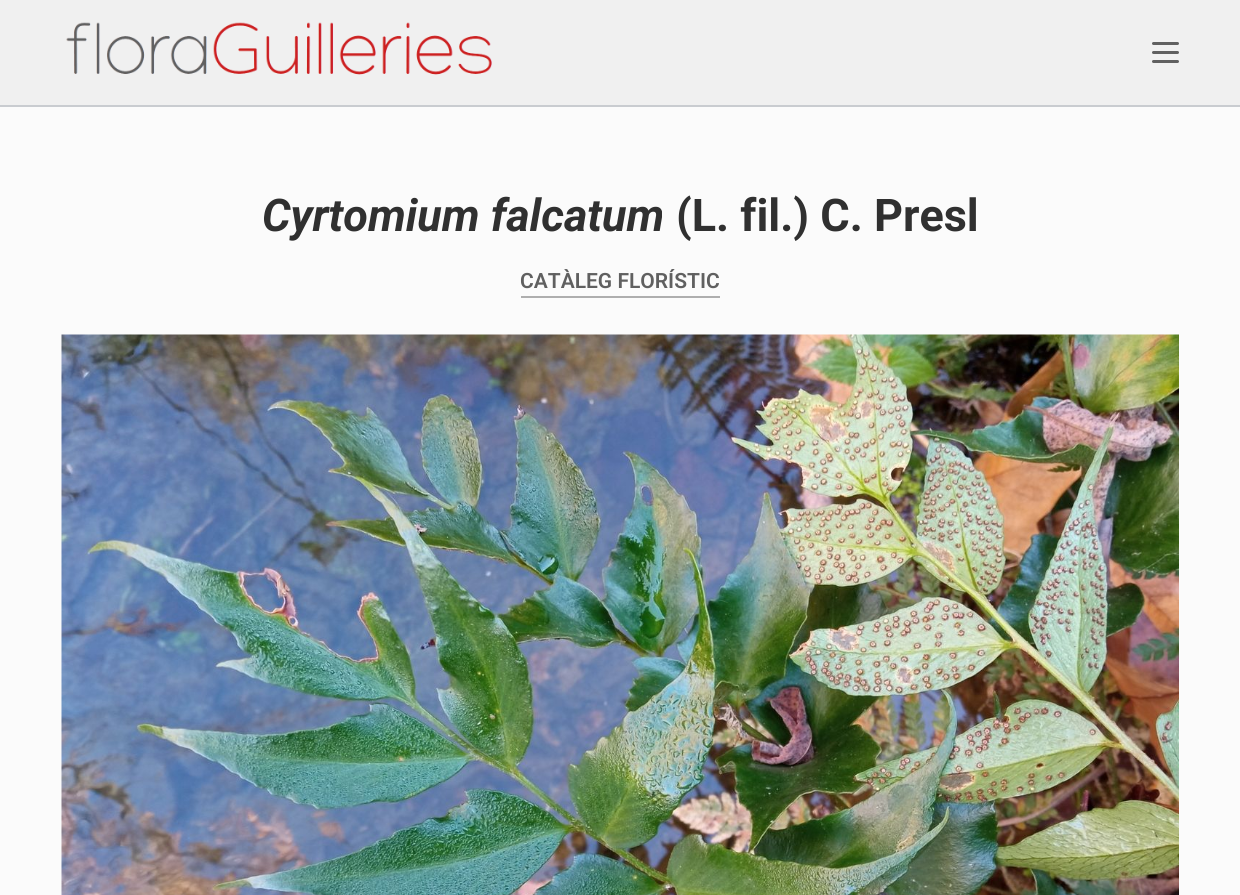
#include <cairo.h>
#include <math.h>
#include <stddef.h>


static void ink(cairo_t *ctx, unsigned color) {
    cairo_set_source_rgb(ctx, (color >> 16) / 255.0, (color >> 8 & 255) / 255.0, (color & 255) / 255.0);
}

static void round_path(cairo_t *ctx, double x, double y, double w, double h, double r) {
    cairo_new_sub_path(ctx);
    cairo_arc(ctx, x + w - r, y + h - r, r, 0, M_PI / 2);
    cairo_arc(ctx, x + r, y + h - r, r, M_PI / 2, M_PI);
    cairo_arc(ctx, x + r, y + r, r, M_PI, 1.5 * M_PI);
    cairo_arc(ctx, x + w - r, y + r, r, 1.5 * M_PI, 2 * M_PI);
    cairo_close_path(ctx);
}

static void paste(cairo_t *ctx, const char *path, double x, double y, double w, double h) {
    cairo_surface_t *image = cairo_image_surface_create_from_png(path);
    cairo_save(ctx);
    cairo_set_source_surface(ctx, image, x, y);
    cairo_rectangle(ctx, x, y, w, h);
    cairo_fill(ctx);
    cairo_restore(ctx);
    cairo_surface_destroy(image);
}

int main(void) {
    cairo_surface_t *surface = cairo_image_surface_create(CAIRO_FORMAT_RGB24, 1240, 895);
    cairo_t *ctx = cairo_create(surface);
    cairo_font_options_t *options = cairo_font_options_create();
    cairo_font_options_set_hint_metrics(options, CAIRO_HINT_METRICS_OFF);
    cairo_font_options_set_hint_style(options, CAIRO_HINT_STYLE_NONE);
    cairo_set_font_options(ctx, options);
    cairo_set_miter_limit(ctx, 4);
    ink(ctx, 0xFBFBFB);
    cairo_paint(ctx);
    ink(ctx, 0xF0F0F0);
    cairo_rectangle(ctx, 0, 0, 1240, 105);
    cairo_fill(ctx);
    ink(ctx, 0xC9CCD0);
    cairo_rectangle(ctx, 0, 105, 1240, 2);
    cairo_fill(ctx);
    paste(ctx, "media/1.png", 66, 22, 426, 53);
    ink(ctx, 0x606060);
    round_path(ctx, 1152, 42, 27, 3, 1.5);
    cairo_fill(ctx);
    round_path(ctx, 1152, 51, 27, 3, 1.5);
    cairo_fill(ctx);
    round_path(ctx, 1152, 60, 27, 3, 1.5);
    cairo_fill(ctx);
    cairo_select_font_face(ctx, "Roboto", CAIRO_FONT_SLANT_ITALIC, CAIRO_FONT_WEIGHT_BOLD);
    cairo_set_font_size(ctx, 45);
    ink(ctx, 0x303030);
    cairo_move_to(ctx, 262, 231);
    cairo_show_text(ctx, "Cyrtomium falcatum");
    cairo_select_font_face(ctx, "Roboto", CAIRO_FONT_SLANT_NORMAL, CAIRO_FONT_WEIGHT_BOLD);
    cairo_move_to(ctx, 676, 231);
    cairo_show_text(ctx, "(L. fil.) C. Presl");
    cairo_select_font_face(ctx, "Roboto SemiBold", CAIRO_FONT_SLANT_NORMAL, CAIRO_FONT_WEIGHT_NORMAL);
    cairo_set_font_size(ctx, 21);
    ink(ctx, 0x606060);
    cairo_move_to(ctx, 520, 288);
    cairo_show_text(ctx, "CATÀLEG FLORÍSTIC");
    ink(ctx, 0xAEAEAE);
    cairo_rectangle(ctx, 521, 296, 199, 2);
    cairo_fill(ctx);
    paste(ctx, "media/2.png", 61, 334, 1118, 561);
    cairo_surface_write_to_png(surface, "image.png");
    cairo_font_options_destroy(options);
    cairo_destroy(ctx);
    cairo_surface_destroy(surface);
    return 0;
}
